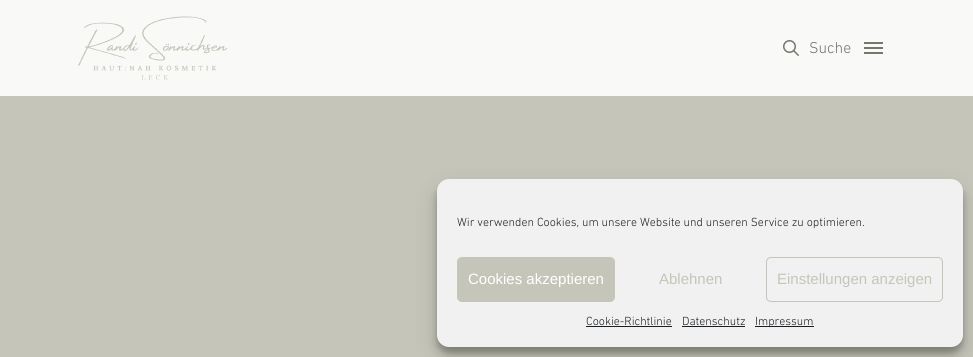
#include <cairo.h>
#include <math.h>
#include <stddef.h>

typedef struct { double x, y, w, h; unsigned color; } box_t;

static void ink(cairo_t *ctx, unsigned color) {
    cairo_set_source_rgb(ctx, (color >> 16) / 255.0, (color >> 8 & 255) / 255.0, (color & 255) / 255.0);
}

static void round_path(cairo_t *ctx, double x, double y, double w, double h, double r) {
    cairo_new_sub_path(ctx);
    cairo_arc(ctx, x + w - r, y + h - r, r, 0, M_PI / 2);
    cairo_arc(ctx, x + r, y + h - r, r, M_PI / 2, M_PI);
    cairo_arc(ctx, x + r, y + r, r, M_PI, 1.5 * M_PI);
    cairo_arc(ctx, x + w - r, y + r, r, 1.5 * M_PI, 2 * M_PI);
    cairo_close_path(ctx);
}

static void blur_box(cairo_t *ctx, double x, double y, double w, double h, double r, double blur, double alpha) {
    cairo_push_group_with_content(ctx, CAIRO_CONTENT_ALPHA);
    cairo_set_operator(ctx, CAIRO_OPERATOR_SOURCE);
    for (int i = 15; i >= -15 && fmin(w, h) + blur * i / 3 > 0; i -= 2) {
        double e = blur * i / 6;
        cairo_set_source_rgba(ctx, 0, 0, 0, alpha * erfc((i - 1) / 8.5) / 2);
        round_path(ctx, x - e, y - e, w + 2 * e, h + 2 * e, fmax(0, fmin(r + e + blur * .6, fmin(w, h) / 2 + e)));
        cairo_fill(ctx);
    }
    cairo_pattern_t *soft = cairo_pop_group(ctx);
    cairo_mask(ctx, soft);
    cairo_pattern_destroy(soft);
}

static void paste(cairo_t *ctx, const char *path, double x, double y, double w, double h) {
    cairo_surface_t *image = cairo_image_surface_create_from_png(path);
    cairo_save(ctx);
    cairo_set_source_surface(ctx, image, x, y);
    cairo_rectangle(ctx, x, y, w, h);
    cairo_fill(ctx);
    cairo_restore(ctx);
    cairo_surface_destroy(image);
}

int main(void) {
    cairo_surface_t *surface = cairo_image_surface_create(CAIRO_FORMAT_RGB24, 973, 357);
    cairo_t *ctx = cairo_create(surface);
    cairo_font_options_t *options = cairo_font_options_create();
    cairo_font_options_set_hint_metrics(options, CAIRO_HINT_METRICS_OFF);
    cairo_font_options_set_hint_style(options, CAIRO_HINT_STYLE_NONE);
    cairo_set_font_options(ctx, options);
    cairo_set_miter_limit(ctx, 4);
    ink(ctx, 0xC5C5B9);
    cairo_paint(ctx);
    ink(ctx, 0xF9F9F8);
    cairo_rectangle(ctx, 0, 0, 973, 96);
    cairo_fill(ctx);
    paste(ctx, "media/1.png", 78, 16, 150, 64);
    paste(ctx, "media/2.png", 783, 40, 16, 16);
    cairo_select_font_face(ctx, "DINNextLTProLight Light", CAIRO_FONT_SLANT_NORMAL, CAIRO_FONT_WEIGHT_NORMAL);
    cairo_set_font_size(ctx, 16);
    ink(ctx, 0x76766F);
    cairo_move_to(ctx, 809, 53);
    cairo_show_text(ctx, "Suche");
    {
        static const box_t items[] = {
            {864, 42, 19, 2, 0x76766F},
            {864, 47, 19, 2, 0x76766F},
            {864, 52, 19, 2, 0x76766F},
        };
        for (size_t i = 0; i < sizeof items / sizeof *items; i++) {
            ink(ctx, items[i].color);
            cairo_rectangle(ctx, items[i].x, items[i].y, items[i].w, items[i].h);
            cairo_fill(ctx);
        }
    }
    ink(ctx, 0x000000);
    blur_box(ctx, 437, 185, 526, 168, 12, 3, 0.23);
    blur_box(ctx, 437, 189, 526, 168, 12, 10, 0.19);
    ink(ctx, 0xF1F1F1);
    round_path(ctx, 437, 179, 526, 168, 12);
    cairo_fill(ctx);
    cairo_set_font_size(ctx, 12);
    ink(ctx, 0x191E23);
    cairo_move_to(ctx, 457, 226);
    cairo_show_text(ctx, "Wir verwenden Cookies, um unsere Website und unseren Service zu optimieren.");
    ink(ctx, 0xC5C5B9);
    round_path(ctx, 457.5, 257.5, 157, 44, 4.5);
    cairo_fill_preserve(ctx);
    cairo_set_line_width(ctx, 1);
    cairo_stroke(ctx);
    cairo_select_font_face(ctx, "Liberation Sans", CAIRO_FONT_SLANT_NORMAL, CAIRO_FONT_WEIGHT_NORMAL);
    cairo_set_font_size(ctx, 15);
    ink(ctx, 0xFFFFFF);
    cairo_move_to(ctx, 468, 284);
    cairo_show_text(ctx, "Cookies akzeptieren");
    ink(ctx, 0xC5C5B9);
    cairo_move_to(ctx, 659, 284);
    cairo_show_text(ctx, "Ablehnen");
    round_path(ctx, 766.5, 257.5, 176, 44, 4.5);
    cairo_stroke(ctx);
    cairo_move_to(ctx, 777, 284);
    cairo_show_text(ctx, "Einstellungen anzeigen");
    cairo_select_font_face(ctx, "DINNextLTProLight Light", CAIRO_FONT_SLANT_NORMAL, CAIRO_FONT_WEIGHT_NORMAL);
    cairo_set_font_size(ctx, 12);
    ink(ctx, 0x191E23);
    cairo_move_to(ctx, 586, 325);
    cairo_show_text(ctx, "Cookie-Richtlinie");
    cairo_rectangle(ctx, 586, 326, 86, 1);
    cairo_fill(ctx);
    cairo_move_to(ctx, 682, 325);
    cairo_show_text(ctx, "Datenschutz");
    cairo_rectangle(ctx, 682, 326, 63, 1);
    cairo_fill(ctx);
    cairo_rectangle(ctx, 755, 326, 59, 1);
    cairo_fill(ctx);
    cairo_move_to(ctx, 755, 325);
    cairo_show_text(ctx, "Impressum");
    cairo_surface_write_to_png(surface, "image.png");
    cairo_font_options_destroy(options);
    cairo_destroy(ctx);
    cairo_surface_destroy(surface);
    return 0;
}
